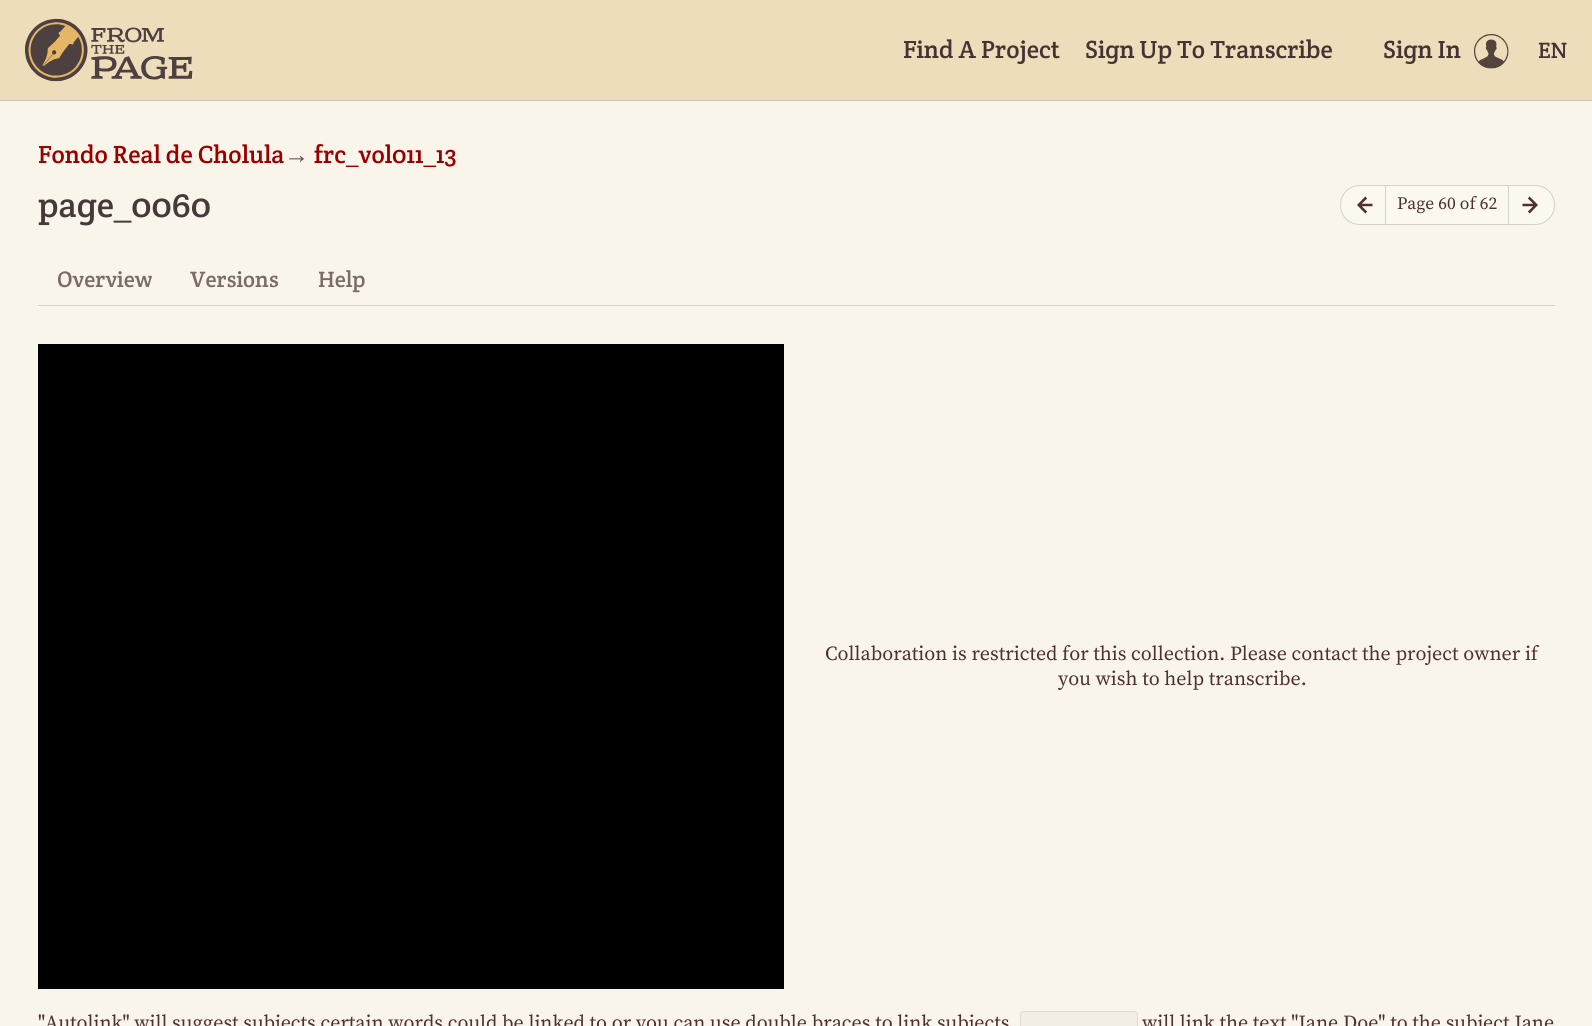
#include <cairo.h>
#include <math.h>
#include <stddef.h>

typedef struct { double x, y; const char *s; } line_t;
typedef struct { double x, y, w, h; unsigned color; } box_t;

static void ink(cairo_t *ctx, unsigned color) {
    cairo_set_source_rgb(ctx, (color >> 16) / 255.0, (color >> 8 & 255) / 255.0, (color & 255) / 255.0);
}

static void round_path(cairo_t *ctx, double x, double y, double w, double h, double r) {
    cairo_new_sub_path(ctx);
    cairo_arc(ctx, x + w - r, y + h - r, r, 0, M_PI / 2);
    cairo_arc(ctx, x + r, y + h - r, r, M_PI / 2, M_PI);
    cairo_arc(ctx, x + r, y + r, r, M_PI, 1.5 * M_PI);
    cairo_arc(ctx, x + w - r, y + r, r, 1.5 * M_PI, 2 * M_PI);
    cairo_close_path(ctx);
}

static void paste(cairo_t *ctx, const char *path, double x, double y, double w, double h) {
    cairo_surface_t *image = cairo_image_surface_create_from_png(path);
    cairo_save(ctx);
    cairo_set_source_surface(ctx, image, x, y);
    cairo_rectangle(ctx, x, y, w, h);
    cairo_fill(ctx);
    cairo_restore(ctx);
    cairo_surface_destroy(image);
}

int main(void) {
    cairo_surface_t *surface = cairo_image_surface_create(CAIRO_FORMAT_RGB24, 1592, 1026);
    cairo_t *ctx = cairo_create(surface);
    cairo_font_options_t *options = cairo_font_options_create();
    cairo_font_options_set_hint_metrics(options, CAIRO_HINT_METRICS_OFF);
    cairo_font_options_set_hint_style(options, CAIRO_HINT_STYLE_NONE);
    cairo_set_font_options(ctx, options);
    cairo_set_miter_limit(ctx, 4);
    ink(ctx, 0xFAF5EB);
    cairo_paint(ctx);
    ink(ctx, 0xC8C4BC);
    cairo_new_path(ctx);
    cairo_move_to(ctx, 0, 100);
    cairo_line_to(ctx, 0, 101);
    cairo_line_to(ctx, 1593, 101);
    cairo_line_to(ctx, 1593, 1);
    cairo_line_to(ctx, 1592, 1);
    cairo_line_to(ctx, 1592, 100);
    cairo_close_path(ctx);
    cairo_fill(ctx);
    ink(ctx, 0xEEDDBB);
    cairo_rectangle(ctx, 0, 0, 1592, 100);
    cairo_fill(ctx);
    paste(ctx, "media/1.png", 25, 18, 168, 64);
    cairo_select_font_face(ctx, "Crete Round", CAIRO_FONT_SLANT_NORMAL, CAIRO_FONT_WEIGHT_NORMAL);
    cairo_set_font_size(ctx, 25);
    ink(ctx, 0x443333);
    {
        static const line_t items[] = {
            {903, 58, "Find A Project"},
            {1085, 58, "Sign Up To Transcribe"},
            {1383, 58, "Sign In"},
        };
        for (size_t i = 0; i < sizeof items / sizeof *items; i++) {
            cairo_move_to(ctx, items[i].x, items[i].y);
            cairo_show_text(ctx, items[i].s);
        }
    }
    paste(ctx, "media/2.png", 1474, 34, 35, 35);
    cairo_set_font_size(ctx, 22.5);
    cairo_move_to(ctx, 1538, 58);
    cairo_show_text(ctx, "EN");
    cairo_set_font_size(ctx, 25);
    ink(ctx, 0x990000);
    cairo_move_to(ctx, 38, 163);
    cairo_show_text(ctx, "Fondo Real de Cholula");
    cairo_select_font_face(ctx, "Liberation Serif", CAIRO_FONT_SLANT_NORMAL, CAIRO_FONT_WEIGHT_NORMAL);
    ink(ctx, 0x634A47);
    cairo_move_to(ctx, 284, 163);
    cairo_show_text(ctx, "→");
    cairo_select_font_face(ctx, "Crete Round", CAIRO_FONT_SLANT_NORMAL, CAIRO_FONT_WEIGHT_NORMAL);
    ink(ctx, 0x990000);
    cairo_move_to(ctx, 314, 163);
    cairo_show_text(ctx, "frc_vol011_13");
    cairo_set_font_size(ctx, 35);
    ink(ctx, 0x453939);
    cairo_move_to(ctx, 38, 217);
    cairo_show_text(ctx, "page_0060");
    ink(ctx, 0xFBF8F0);
    cairo_new_path(ctx);
    cairo_move_to(ctx, 1360, 185.5);
    cairo_line_to(ctx, 1385.5, 185.5);
    cairo_line_to(ctx, 1385.5, 224.5);
    cairo_line_to(ctx, 1360, 224.5);
    cairo_curve_to(ctx, 1349, 224.5, 1340.5, 216, 1340.5, 205);
    cairo_curve_to(ctx, 1340.5, 194, 1349, 185.5, 1360, 185.5);
    cairo_close_path(ctx);
    cairo_fill_preserve(ctx);
    ink(ctx, 0xD5D0C8);
    cairo_set_line_width(ctx, 1);
    cairo_stroke(ctx);
    paste(ctx, "media/3.png", 1357, 196, 16, 18);
    {
        static const box_t items[] = {
            {1386, 186, 122, 38, 0xFBF8F0},
            {1386, 185, 122, 1, 0xD5D0C8},
            {1386, 224, 122, 1, 0xD5D0C8},
        };
        for (size_t i = 0; i < sizeof items / sizeof *items; i++) {
            ink(ctx, items[i].color);
            cairo_rectangle(ctx, items[i].x, items[i].y, items[i].w, items[i].h);
            cairo_fill(ctx);
        }
    }
    cairo_select_font_face(ctx, "Source Serif Pro", CAIRO_FONT_SLANT_NORMAL, CAIRO_FONT_WEIGHT_NORMAL);
    cairo_set_font_size(ctx, 17.5);
    ink(ctx, 0x4D312F);
    cairo_move_to(ctx, 1397, 209);
    cairo_show_text(ctx, "Page 60 of 62");
    ink(ctx, 0xFBF8F0);
    cairo_new_path(ctx);
    cairo_move_to(ctx, 1508.5, 185.5);
    cairo_line_to(ctx, 1535, 185.5);
    cairo_curve_to(ctx, 1546, 185.5, 1554.5, 194, 1554.5, 205);
    cairo_curve_to(ctx, 1554.5, 216, 1546, 224.5, 1535, 224.5);
    cairo_line_to(ctx, 1508.5, 224.5);
    cairo_close_path(ctx);
    cairo_fill_preserve(ctx);
    ink(ctx, 0xD5D0C8);
    cairo_stroke(ctx);
    paste(ctx, "media/4.png", 1522, 196, 16, 18);
    cairo_rectangle(ctx, 38, 305, 1517, 1);
    cairo_fill(ctx);
    cairo_select_font_face(ctx, "Crete Round", CAIRO_FONT_SLANT_NORMAL, CAIRO_FONT_WEIGHT_NORMAL);
    cairo_set_font_size(ctx, 22.5);
    ink(ctx, 0x796C68);
    {
        static const line_t items[] = {
            {57, 287, "Overview"},
            {190, 287, "Versions"},
            {318, 287, "Help"},
        };
        for (size_t i = 0; i < sizeof items / sizeof *items; i++) {
            cairo_move_to(ctx, items[i].x, items[i].y);
            cairo_show_text(ctx, items[i].s);
        }
    }
    ink(ctx, 0x000000);
    cairo_rectangle(ctx, 38, 344, 746, 645);
    cairo_fill(ctx);
    cairo_select_font_face(ctx, "Source Serif Pro", CAIRO_FONT_SLANT_NORMAL, CAIRO_FONT_WEIGHT_NORMAL);
    cairo_set_font_size(ctx, 20);
    ink(ctx, 0x4D312F);
    {
        static const line_t items[] = {
            {825, 660, "Collaboration is restricted for this collection. Please contact the project owner if"},
            {1058, 685, "you wish to help transcribe."},
            {38, 1029, "\"Autolink\" will suggest subjects certain words could be linked to or you can use double braces to link subjects"},
        };
        for (size_t i = 0; i < sizeof items / sizeof *items; i++) {
            cairo_move_to(ctx, items[i].x, items[i].y);
            cairo_show_text(ctx, items[i].s);
        }
    }
    ink(ctx, 0xF3EEE4);
    round_path(ctx, 1020.5, 1011.5, 117, 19, 3.5);
    cairo_fill_preserve(ctx);
    ink(ctx, 0xE0DBD2);
    cairo_stroke(ctx);
    ink(ctx, 0x4D312F);
    cairo_move_to(ctx, 1142, 1029);
    cairo_show_text(ctx, "will link the text \"Jane Doe\" to the subject Jane");
    cairo_surface_write_to_png(surface, "image.png");
    cairo_font_options_destroy(options);
    cairo_destroy(ctx);
    cairo_surface_destroy(surface);
    return 0;
}
